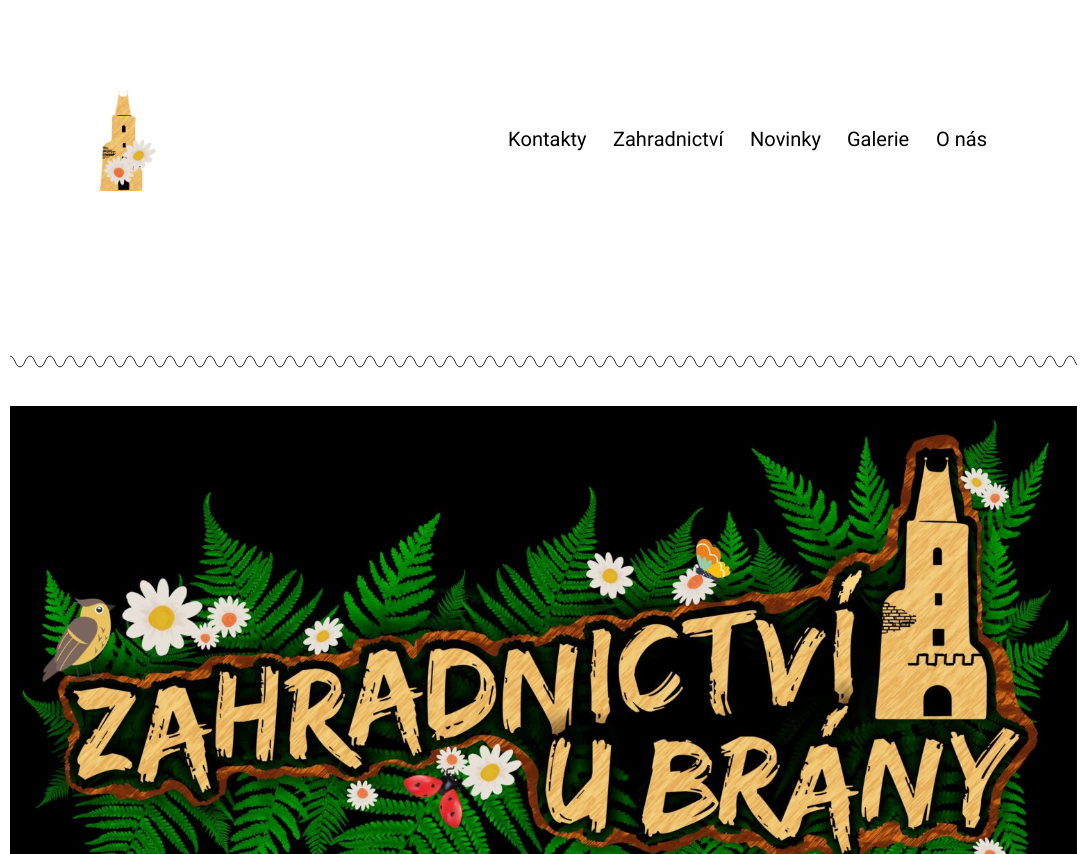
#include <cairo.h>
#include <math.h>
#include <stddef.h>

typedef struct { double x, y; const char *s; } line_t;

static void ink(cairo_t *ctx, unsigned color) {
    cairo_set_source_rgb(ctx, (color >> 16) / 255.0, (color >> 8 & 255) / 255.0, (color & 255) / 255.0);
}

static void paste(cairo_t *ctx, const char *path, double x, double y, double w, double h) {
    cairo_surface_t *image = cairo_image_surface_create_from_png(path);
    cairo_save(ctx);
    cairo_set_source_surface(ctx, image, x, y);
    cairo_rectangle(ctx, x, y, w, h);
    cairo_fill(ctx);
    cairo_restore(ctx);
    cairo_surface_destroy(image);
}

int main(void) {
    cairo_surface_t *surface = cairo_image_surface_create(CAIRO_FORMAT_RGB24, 1087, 854);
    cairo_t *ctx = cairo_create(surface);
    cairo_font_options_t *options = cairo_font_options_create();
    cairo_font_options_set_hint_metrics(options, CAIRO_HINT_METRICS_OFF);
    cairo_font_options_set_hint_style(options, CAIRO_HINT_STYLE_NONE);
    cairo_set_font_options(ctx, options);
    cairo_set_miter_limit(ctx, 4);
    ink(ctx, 0xFFFFFF);
    cairo_paint(ctx);
    paste(ctx, "media/1.png", 100, 91, 56, 100);
    cairo_select_font_face(ctx, "Roboto", CAIRO_FONT_SLANT_NORMAL, CAIRO_FONT_WEIGHT_NORMAL);
    cairo_set_font_size(ctx, 20);
    ink(ctx, 0x000000);
    {
        static const line_t items[] = {
            {508, 146, "Kontakty"},
            {613, 146, "Zahradnictví"},
            {750, 146, "Novinky"},
            {847, 146, "Galerie"},
            {936, 146, "O nás"},
        };
        for (size_t i = 0; i < sizeof items / sizeof *items; i++) {
            cairo_move_to(ctx, items[i].x, items[i].y);
            cairo_show_text(ctx, items[i].s);
        }
    }
    paste(ctx, "media/2.png", 10, 355, 1067, 13);
    paste(ctx, "media/3.png", 10, 406, 1067, 448);
    cairo_surface_write_to_png(surface, "image.png");
    cairo_font_options_destroy(options);
    cairo_destroy(ctx);
    cairo_surface_destroy(surface);
    return 0;
}
